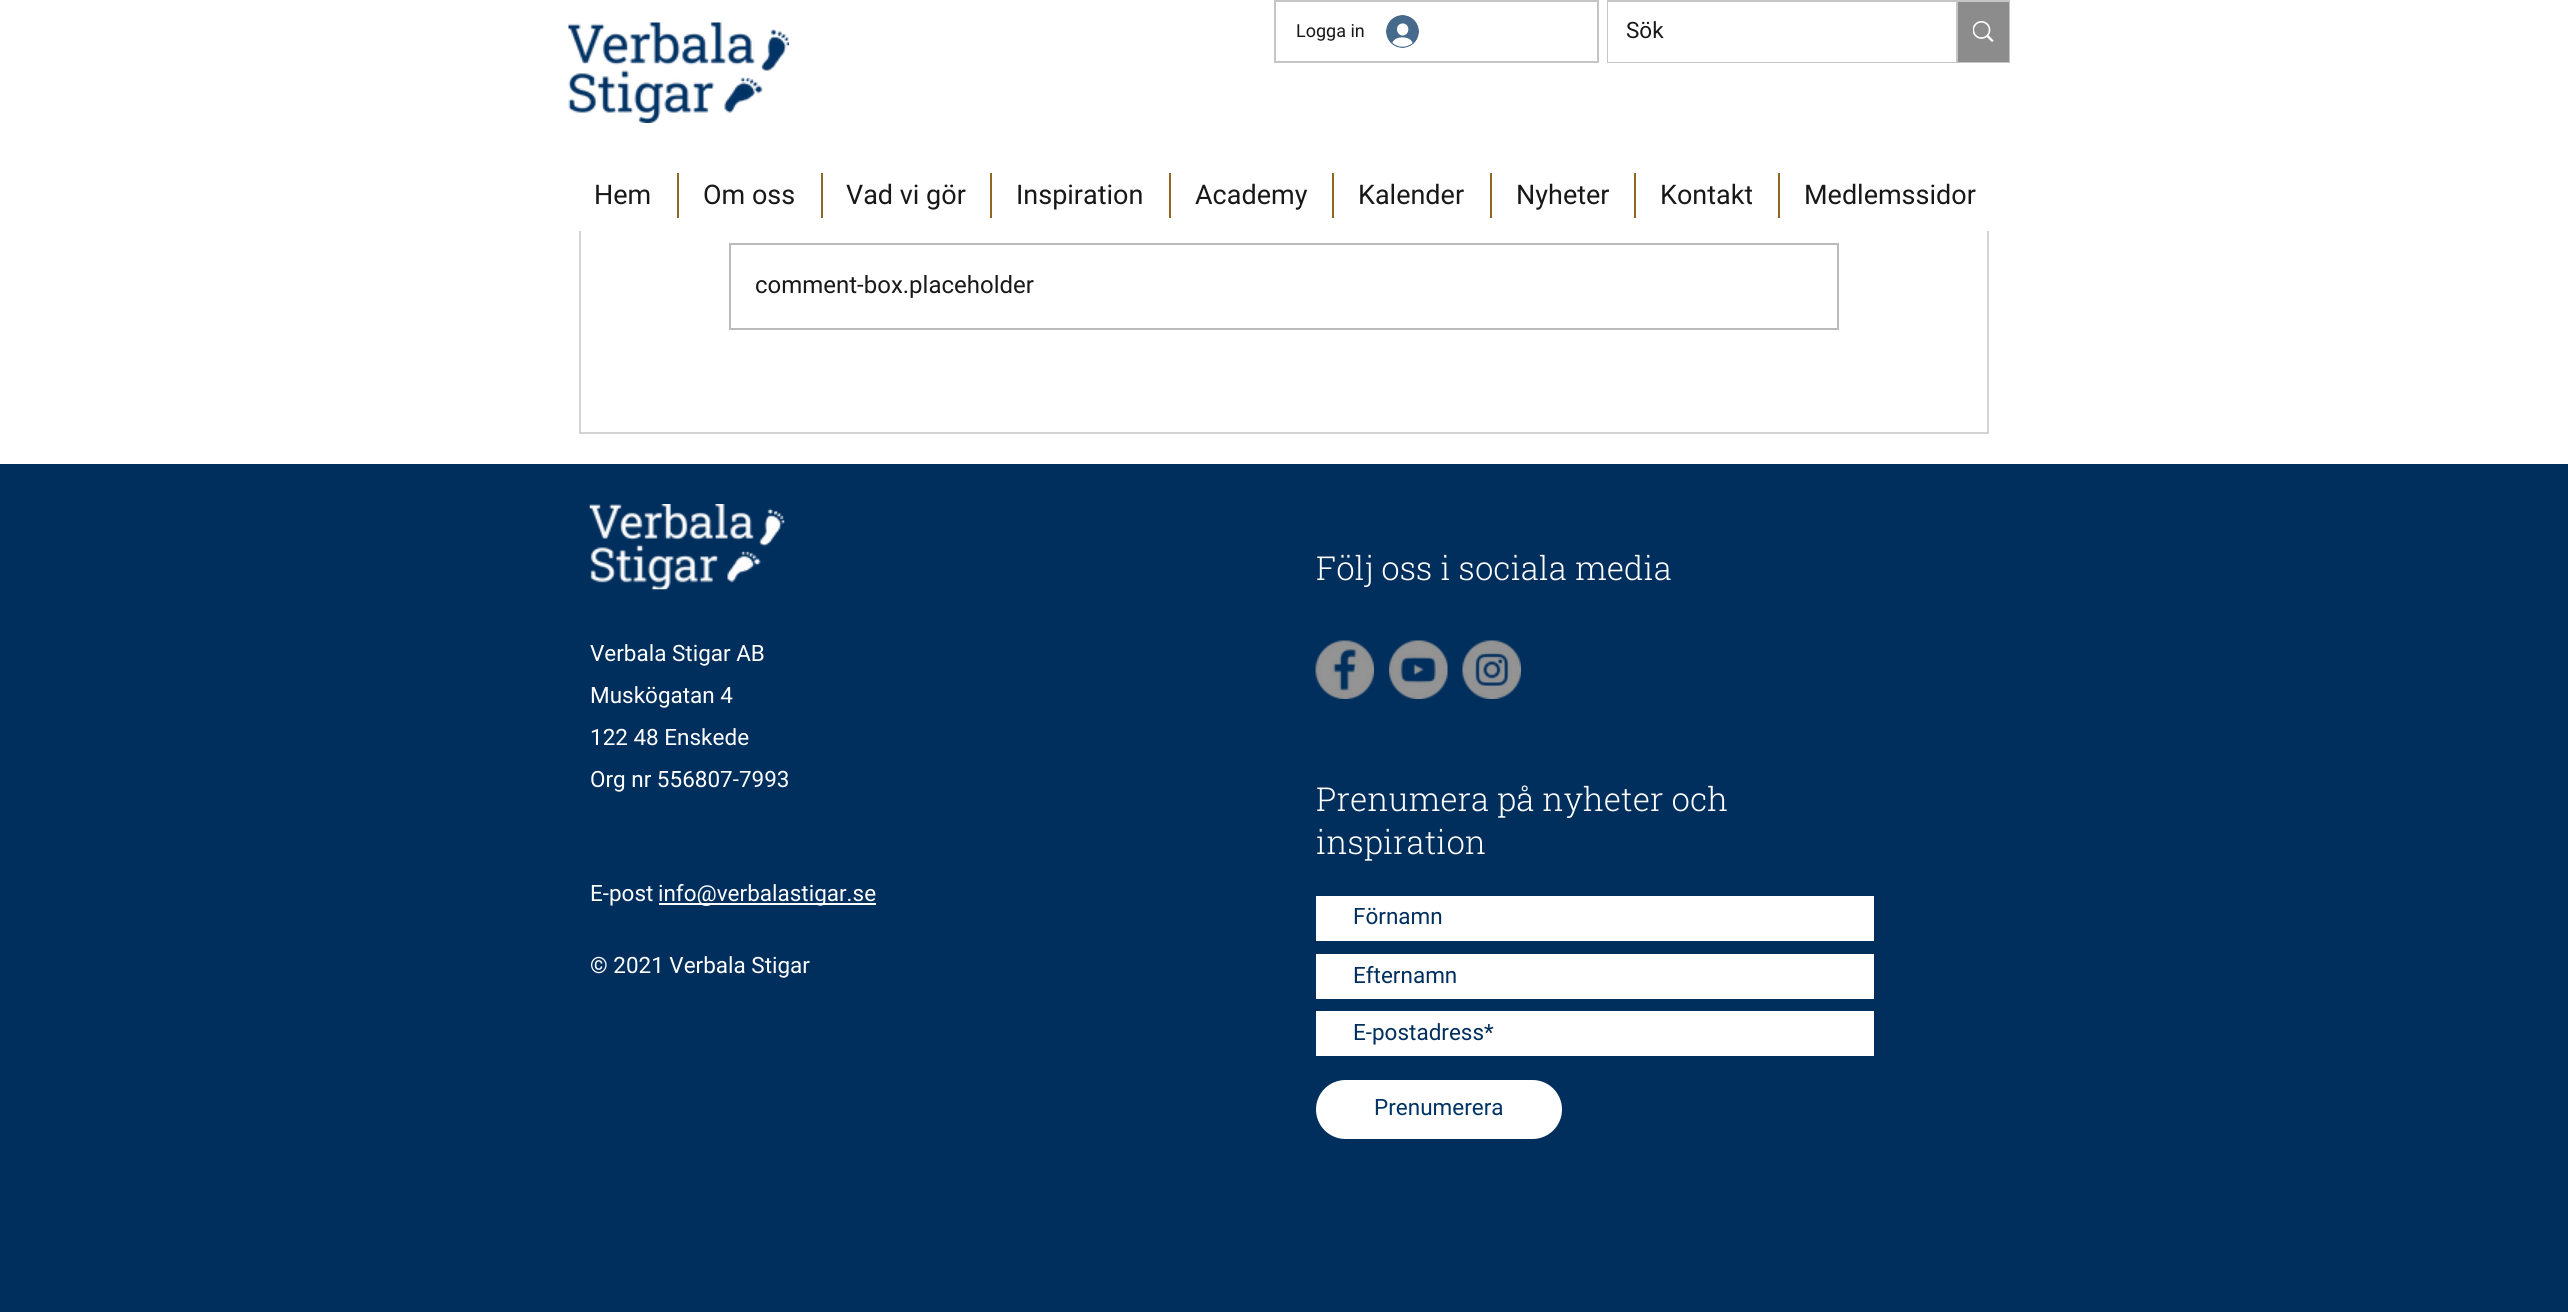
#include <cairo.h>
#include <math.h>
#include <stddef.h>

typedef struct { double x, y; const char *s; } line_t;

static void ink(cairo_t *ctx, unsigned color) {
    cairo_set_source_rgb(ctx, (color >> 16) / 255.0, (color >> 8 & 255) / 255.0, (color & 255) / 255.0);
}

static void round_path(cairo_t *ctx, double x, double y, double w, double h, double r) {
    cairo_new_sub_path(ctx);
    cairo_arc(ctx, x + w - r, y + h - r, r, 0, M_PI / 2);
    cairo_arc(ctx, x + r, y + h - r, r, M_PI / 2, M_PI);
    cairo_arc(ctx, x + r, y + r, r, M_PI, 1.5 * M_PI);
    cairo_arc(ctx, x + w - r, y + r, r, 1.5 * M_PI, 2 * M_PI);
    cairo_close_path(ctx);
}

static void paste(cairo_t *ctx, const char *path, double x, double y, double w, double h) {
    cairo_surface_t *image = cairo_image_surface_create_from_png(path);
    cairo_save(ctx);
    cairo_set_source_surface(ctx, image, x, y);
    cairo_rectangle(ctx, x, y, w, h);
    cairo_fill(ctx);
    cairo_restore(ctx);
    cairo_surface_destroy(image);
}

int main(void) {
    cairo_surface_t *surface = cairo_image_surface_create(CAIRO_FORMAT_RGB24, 2568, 1312);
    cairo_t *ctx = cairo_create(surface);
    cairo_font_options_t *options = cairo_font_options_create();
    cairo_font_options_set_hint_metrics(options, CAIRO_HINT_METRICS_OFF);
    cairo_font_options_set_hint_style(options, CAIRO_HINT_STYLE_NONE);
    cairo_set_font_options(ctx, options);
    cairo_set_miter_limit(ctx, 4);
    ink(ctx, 0xFFFFFF);
    cairo_paint(ctx);
    cairo_rectangle(ctx, 580, 37, 1408, 396);
    ink(ctx, 0xD4D4D4);
    cairo_stroke(ctx);
    ink(ctx, 0xFFFFFF);
    cairo_rectangle(ctx, 579, 36, 1410, 195);
    cairo_fill(ctx);
    paste(ctx, "media/1.png", 568, 22, 221, 101);
    cairo_rectangle(ctx, 1275, 1, 323, 61);
    ink(ctx, 0xC5C5C5);
    cairo_stroke(ctx);
    cairo_select_font_face(ctx, "Roboto", CAIRO_FONT_SLANT_NORMAL, CAIRO_FONT_WEIGHT_NORMAL);
    cairo_set_font_size(ctx, 18);
    ink(ctx, 0x181818);
    cairo_move_to(ctx, 1296, 37);
    cairo_show_text(ctx, "Logga in");
    paste(ctx, "media/2.png", 1386, 15, 33, 33);
    cairo_rectangle(ctx, 1608, 1, 401, 61);
    ink(ctx, 0xC5C5C5);
    cairo_stroke(ctx);
    ink(ctx, 0xFFFFFF);
    cairo_rectangle(ctx, 1608, 2, 348, 60);
    cairo_fill(ctx);
    cairo_set_font_size(ctx, 22.5);
    ink(ctx, 0x181818);
    cairo_move_to(ctx, 1626, 38);
    cairo_show_text(ctx, "Sök");
    ink(ctx, 0x8C8C8C);
    cairo_rectangle(ctx, 1958, 2, 51, 60);
    cairo_fill(ctx);
    ink(ctx, 0xC5C5C5);
    cairo_rectangle(ctx, 1956, 2, 2, 60);
    cairo_fill(ctx);
    paste(ctx, "media/3.png", 1973, 21, 21, 21);
    cairo_set_font_size(ctx, 27);
    ink(ctx, 0x181818);
    cairo_move_to(ctx, 594, 204);
    cairo_show_text(ctx, "Hem");
    ink(ctx, 0x916821);
    cairo_rectangle(ctx, 677, 173, 2, 45);
    cairo_fill(ctx);
    ink(ctx, 0x181818);
    cairo_move_to(ctx, 703, 204);
    cairo_show_text(ctx, "Om oss");
    ink(ctx, 0x916821);
    cairo_rectangle(ctx, 821, 173, 2, 45);
    cairo_fill(ctx);
    ink(ctx, 0x181818);
    cairo_move_to(ctx, 846, 204);
    cairo_show_text(ctx, "Vad vi gör");
    ink(ctx, 0x916821);
    cairo_rectangle(ctx, 990, 173, 2, 45);
    cairo_fill(ctx);
    ink(ctx, 0x181818);
    cairo_move_to(ctx, 1016, 204);
    cairo_show_text(ctx, "Inspiration");
    ink(ctx, 0x916821);
    cairo_rectangle(ctx, 1169, 173, 2, 45);
    cairo_fill(ctx);
    ink(ctx, 0x181818);
    cairo_move_to(ctx, 1195, 204);
    cairo_show_text(ctx, "Academy");
    ink(ctx, 0x916821);
    cairo_rectangle(ctx, 1332, 173, 2, 45);
    cairo_fill(ctx);
    ink(ctx, 0x181818);
    cairo_move_to(ctx, 1358, 204);
    cairo_show_text(ctx, "Kalender");
    ink(ctx, 0x916821);
    cairo_rectangle(ctx, 1490, 173, 2, 45);
    cairo_fill(ctx);
    ink(ctx, 0x181818);
    cairo_move_to(ctx, 1516, 204);
    cairo_show_text(ctx, "Nyheter");
    ink(ctx, 0x916821);
    cairo_rectangle(ctx, 1634, 173, 2, 45);
    cairo_fill(ctx);
    ink(ctx, 0x181818);
    cairo_move_to(ctx, 1660, 204);
    cairo_show_text(ctx, "Kontakt");
    ink(ctx, 0x916821);
    cairo_rectangle(ctx, 1778, 173, 2, 45);
    cairo_fill(ctx);
    ink(ctx, 0x181818);
    cairo_move_to(ctx, 1804, 204);
    cairo_show_text(ctx, "Medlemssidor");
    cairo_rectangle(ctx, 730, 244, 1108, 85);
    ink(ctx, 0xBABABA);
    cairo_stroke(ctx);
    cairo_set_font_size(ctx, 24);
    ink(ctx, 0x181818);
    cairo_move_to(ctx, 755, 293);
    cairo_show_text(ctx, "comment-box.placeholder");
    ink(ctx, 0x002E5D);
    cairo_rectangle(ctx, 0, 464, 2568, 848);
    cairo_fill(ctx);
    paste(ctx, "media/4.png", 589, 504, 196, 86);
    cairo_select_font_face(ctx, "Roboto Slab Light", CAIRO_FONT_SLANT_NORMAL, CAIRO_FONT_WEIGHT_NORMAL);
    cairo_set_font_size(ctx, 33);
    ink(ctx, 0xFFFFFF);
    cairo_move_to(ctx, 1316, 580);
    cairo_show_text(ctx, "Följ oss i sociala media");
    cairo_select_font_face(ctx, "Roboto", CAIRO_FONT_SLANT_NORMAL, CAIRO_FONT_WEIGHT_NORMAL);
    cairo_set_font_size(ctx, 22.5);
    {
        static const line_t items[] = {
            {590, 661, "Verbala Stigar AB"},
            {590, 703, "Muskögatan 4"},
            {590, 745, "122 48 Enskede"},
            {590, 787, "Org nr 556807-7993"},
        };
        for (size_t i = 0; i < sizeof items / sizeof *items; i++) {
            cairo_move_to(ctx, items[i].x, items[i].y);
            cairo_show_text(ctx, items[i].s);
        }
    }
    paste(ctx, "media/5.png", 1315, 640, 59, 59);
    paste(ctx, "media/6.png", 1389, 640, 59, 59);
    paste(ctx, "media/7.png", 1462, 640, 59, 59);
    cairo_select_font_face(ctx, "Roboto Slab Light", CAIRO_FONT_SLANT_NORMAL, CAIRO_FONT_WEIGHT_NORMAL);
    cairo_set_font_size(ctx, 33);
    cairo_move_to(ctx, 1316, 811);
    cairo_show_text(ctx, "Prenumera på nyheter och");
    cairo_move_to(ctx, 1316, 854);
    cairo_show_text(ctx, "inspiration");
    cairo_select_font_face(ctx, "Roboto", CAIRO_FONT_SLANT_NORMAL, CAIRO_FONT_WEIGHT_NORMAL);
    cairo_set_font_size(ctx, 22.5);
    cairo_move_to(ctx, 590, 901);
    cairo_show_text(ctx, "E-post");
    cairo_rectangle(ctx, 659, 903, 217, 2);
    cairo_fill(ctx);
    cairo_move_to(ctx, 658, 901);
    cairo_show_text(ctx, "info@verbalastigar.se");
    cairo_move_to(ctx, 590, 973);
    cairo_show_text(ctx, "© 2021 Verbala Stigar");
    cairo_rectangle(ctx, 1316, 896, 558, 45);
    cairo_fill(ctx);
    ink(ctx, 0x002E5D);
    cairo_move_to(ctx, 1353, 924);
    cairo_show_text(ctx, "Förnamn");
    ink(ctx, 0xFFFFFF);
    cairo_rectangle(ctx, 1316, 954, 558, 45);
    cairo_fill(ctx);
    ink(ctx, 0x002E5D);
    cairo_move_to(ctx, 1353, 983);
    cairo_show_text(ctx, "Efternamn");
    ink(ctx, 0xFFFFFF);
    cairo_rectangle(ctx, 1316, 1011, 558, 45);
    cairo_fill(ctx);
    ink(ctx, 0x002E5D);
    cairo_move_to(ctx, 1353, 1040);
    cairo_show_text(ctx, "E-postadress*");
    ink(ctx, 0xFFFFFF);
    round_path(ctx, 1316, 1080, 246, 59, 29.5);
    cairo_fill(ctx);
    ink(ctx, 0x003366);
    cairo_move_to(ctx, 1374, 1115);
    cairo_show_text(ctx, "Prenumerera");
    cairo_surface_write_to_png(surface, "image.png");
    cairo_font_options_destroy(options);
    cairo_destroy(ctx);
    cairo_surface_destroy(surface);
    return 0;
}
